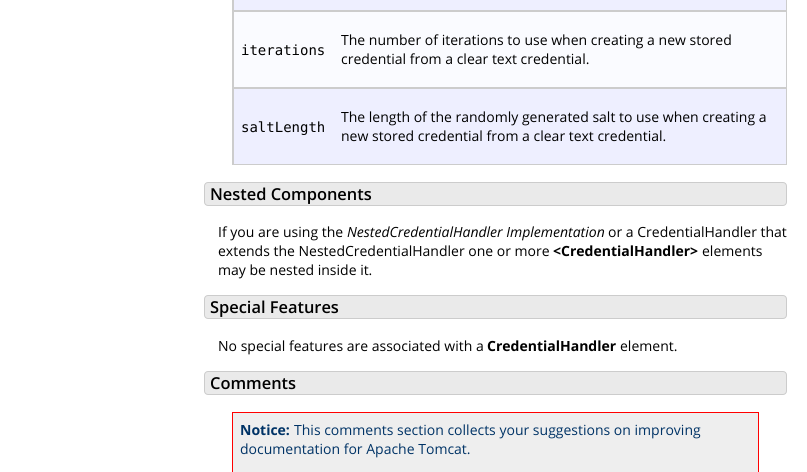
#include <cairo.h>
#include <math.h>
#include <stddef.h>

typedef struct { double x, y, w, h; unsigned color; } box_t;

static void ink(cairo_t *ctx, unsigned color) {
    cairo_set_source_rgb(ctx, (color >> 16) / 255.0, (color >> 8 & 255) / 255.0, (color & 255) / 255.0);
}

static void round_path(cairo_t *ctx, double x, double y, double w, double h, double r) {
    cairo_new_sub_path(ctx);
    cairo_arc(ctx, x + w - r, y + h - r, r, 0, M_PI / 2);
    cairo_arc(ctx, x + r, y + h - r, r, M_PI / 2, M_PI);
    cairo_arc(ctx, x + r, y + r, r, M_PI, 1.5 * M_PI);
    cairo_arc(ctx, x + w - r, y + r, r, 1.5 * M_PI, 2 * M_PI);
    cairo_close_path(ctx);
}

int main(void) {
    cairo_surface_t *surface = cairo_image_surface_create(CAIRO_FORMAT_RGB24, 807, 472);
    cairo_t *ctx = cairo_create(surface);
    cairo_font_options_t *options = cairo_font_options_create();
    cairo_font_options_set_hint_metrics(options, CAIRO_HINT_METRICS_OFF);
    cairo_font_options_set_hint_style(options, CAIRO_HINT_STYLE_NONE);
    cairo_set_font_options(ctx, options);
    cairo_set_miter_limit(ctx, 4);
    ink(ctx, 0xFFFFFF);
    cairo_paint(ctx);
    ink(ctx, 0xEEEFFF);
    cairo_rectangle(ctx, 233.5, -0.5, 553, 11);
    cairo_fill_preserve(ctx);
    ink(ctx, 0xCCCCCC);
    cairo_set_line_width(ctx, 1);
    cairo_stroke(ctx);
    ink(ctx, 0xFAFBFF);
    cairo_rectangle(ctx, 233.5, 11.5, 553, 76);
    cairo_fill_preserve(ctx);
    ink(ctx, 0xCCCCCC);
    cairo_stroke(ctx);
    {
        static const box_t items[] = {
            {232, 87, 1, 1, 0xCCCCCC},
            {232, 87, 1, 78, 0xCCCCCC},
            {232, 0, 1, 88, 0xCCCCCC},
        };
        for (size_t i = 0; i < sizeof items / sizeof *items; i++) {
            ink(ctx, items[i].color);
            cairo_rectangle(ctx, items[i].x, items[i].y, items[i].w, items[i].h);
            cairo_fill(ctx);
        }
    }
    cairo_select_font_face(ctx, "DejaVu Sans Mono", CAIRO_FONT_SLANT_NORMAL, CAIRO_FONT_WEIGHT_NORMAL);
    cairo_set_font_size(ctx, 14);
    ink(ctx, 0x000000);
    cairo_move_to(ctx, 241, 55);
    cairo_show_text(ctx, "iterations");
    cairo_select_font_face(ctx, "Open Sans", CAIRO_FONT_SLANT_NORMAL, CAIRO_FONT_WEIGHT_NORMAL);
    cairo_move_to(ctx, 341, 45);
    cairo_show_text(ctx, "The number of iterations to use when creating a new stored");
    cairo_move_to(ctx, 341, 64);
    cairo_show_text(ctx, "credential from a clear text credential.");
    ink(ctx, 0xEEEFFF);
    cairo_rectangle(ctx, 233.5, 88.5, 553, 76);
    cairo_fill_preserve(ctx);
    ink(ctx, 0xCCCCCC);
    cairo_stroke(ctx);
    cairo_select_font_face(ctx, "DejaVu Sans Mono", CAIRO_FONT_SLANT_NORMAL, CAIRO_FONT_WEIGHT_NORMAL);
    ink(ctx, 0x000000);
    cairo_move_to(ctx, 241, 132);
    cairo_show_text(ctx, "saltLength");
    cairo_select_font_face(ctx, "Open Sans", CAIRO_FONT_SLANT_NORMAL, CAIRO_FONT_WEIGHT_NORMAL);
    cairo_move_to(ctx, 341, 122);
    cairo_show_text(ctx, "The length of the randomly generated salt to use when creating a");
    cairo_move_to(ctx, 341, 141);
    cairo_show_text(ctx, "new stored credential from a clear text credential.");
    ink(ctx, 0xEAEAEA);
    round_path(ctx, 204.5, 182.5, 582, 23, 3.5);
    cairo_fill_preserve(ctx);
    ink(ctx, 0xCCCCCC);
    cairo_stroke(ctx);
    cairo_select_font_face(ctx, "Open Sans SemiBold", CAIRO_FONT_SLANT_NORMAL, CAIRO_FONT_WEIGHT_NORMAL);
    cairo_set_font_size(ctx, 16.4);
    ink(ctx, 0x000000);
    cairo_move_to(ctx, 210, 200);
    cairo_show_text(ctx, "Nested Components");
    cairo_select_font_face(ctx, "Open Sans", CAIRO_FONT_SLANT_NORMAL, CAIRO_FONT_WEIGHT_NORMAL);
    cairo_set_font_size(ctx, 14);
    cairo_move_to(ctx, 218, 237);
    cairo_show_text(ctx, "If you are using the");
    cairo_select_font_face(ctx, "Open Sans", CAIRO_FONT_SLANT_ITALIC, CAIRO_FONT_WEIGHT_NORMAL);
    cairo_move_to(ctx, 347, 237);
    cairo_show_text(ctx, "NestedCredentialHandler Implementation");
    cairo_select_font_face(ctx, "Open Sans", CAIRO_FONT_SLANT_NORMAL, CAIRO_FONT_WEIGHT_NORMAL);
    cairo_move_to(ctx, 608, 237);
    cairo_show_text(ctx, "or a CredentialHandler that");
    cairo_move_to(ctx, 218, 256);
    cairo_show_text(ctx, "extends the NestedCredentialHandler one or more");
    cairo_select_font_face(ctx, "Open Sans", CAIRO_FONT_SLANT_NORMAL, CAIRO_FONT_WEIGHT_BOLD);
    cairo_move_to(ctx, 553, 256);
    cairo_show_text(ctx, "<CredentialHandler>");
    cairo_select_font_face(ctx, "Open Sans", CAIRO_FONT_SLANT_NORMAL, CAIRO_FONT_WEIGHT_NORMAL);
    cairo_move_to(ctx, 702, 256);
    cairo_show_text(ctx, "elements");
    cairo_move_to(ctx, 218, 275);
    cairo_show_text(ctx, "may be nested inside it.");
    ink(ctx, 0xEAEAEA);
    round_path(ctx, 204.5, 295.5, 582, 23, 3.5);
    cairo_fill_preserve(ctx);
    ink(ctx, 0xCCCCCC);
    cairo_stroke(ctx);
    cairo_select_font_face(ctx, "Open Sans SemiBold", CAIRO_FONT_SLANT_NORMAL, CAIRO_FONT_WEIGHT_NORMAL);
    cairo_set_font_size(ctx, 16.4);
    ink(ctx, 0x000000);
    cairo_move_to(ctx, 210, 313);
    cairo_show_text(ctx, "Special Features");
    cairo_select_font_face(ctx, "Open Sans", CAIRO_FONT_SLANT_NORMAL, CAIRO_FONT_WEIGHT_NORMAL);
    cairo_set_font_size(ctx, 14);
    cairo_move_to(ctx, 218, 351);
    cairo_show_text(ctx, "No special features are associated with a");
    cairo_select_font_face(ctx, "Open Sans", CAIRO_FONT_SLANT_NORMAL, CAIRO_FONT_WEIGHT_BOLD);
    cairo_move_to(ctx, 487, 351);
    cairo_show_text(ctx, "CredentialHandler");
    cairo_select_font_face(ctx, "Open Sans", CAIRO_FONT_SLANT_NORMAL, CAIRO_FONT_WEIGHT_NORMAL);
    cairo_move_to(ctx, 620, 351);
    cairo_show_text(ctx, "element.");
    ink(ctx, 0xEAEAEA);
    round_path(ctx, 204.5, 371.5, 582, 23, 3.5);
    cairo_fill_preserve(ctx);
    ink(ctx, 0xCCCCCC);
    cairo_stroke(ctx);
    cairo_select_font_face(ctx, "Open Sans SemiBold", CAIRO_FONT_SLANT_NORMAL, CAIRO_FONT_WEIGHT_NORMAL);
    cairo_set_font_size(ctx, 16.4);
    ink(ctx, 0x000000);
    cairo_move_to(ctx, 210, 389);
    cairo_show_text(ctx, "Comments");
    ink(ctx, 0xEEEEEE);
    cairo_rectangle(ctx, 232.5, 412.5, 526, 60);
    cairo_fill_preserve(ctx);
    ink(ctx, 0xFF0000);
    cairo_stroke(ctx);
    cairo_select_font_face(ctx, "Open Sans", CAIRO_FONT_SLANT_NORMAL, CAIRO_FONT_WEIGHT_BOLD);
    cairo_set_font_size(ctx, 14);
    ink(ctx, 0x003366);
    cairo_move_to(ctx, 240, 435);
    cairo_show_text(ctx, "Notice:");
    cairo_select_font_face(ctx, "Open Sans", CAIRO_FONT_SLANT_NORMAL, CAIRO_FONT_WEIGHT_NORMAL);
    cairo_move_to(ctx, 294, 435);
    cairo_show_text(ctx, "This comments section collects your suggestions on improving");
    cairo_move_to(ctx, 240, 454);
    cairo_show_text(ctx, "documentation for Apache Tomcat.");
    cairo_surface_write_to_png(surface, "image.png");
    cairo_font_options_destroy(options);
    cairo_destroy(ctx);
    cairo_surface_destroy(surface);
    return 0;
}
